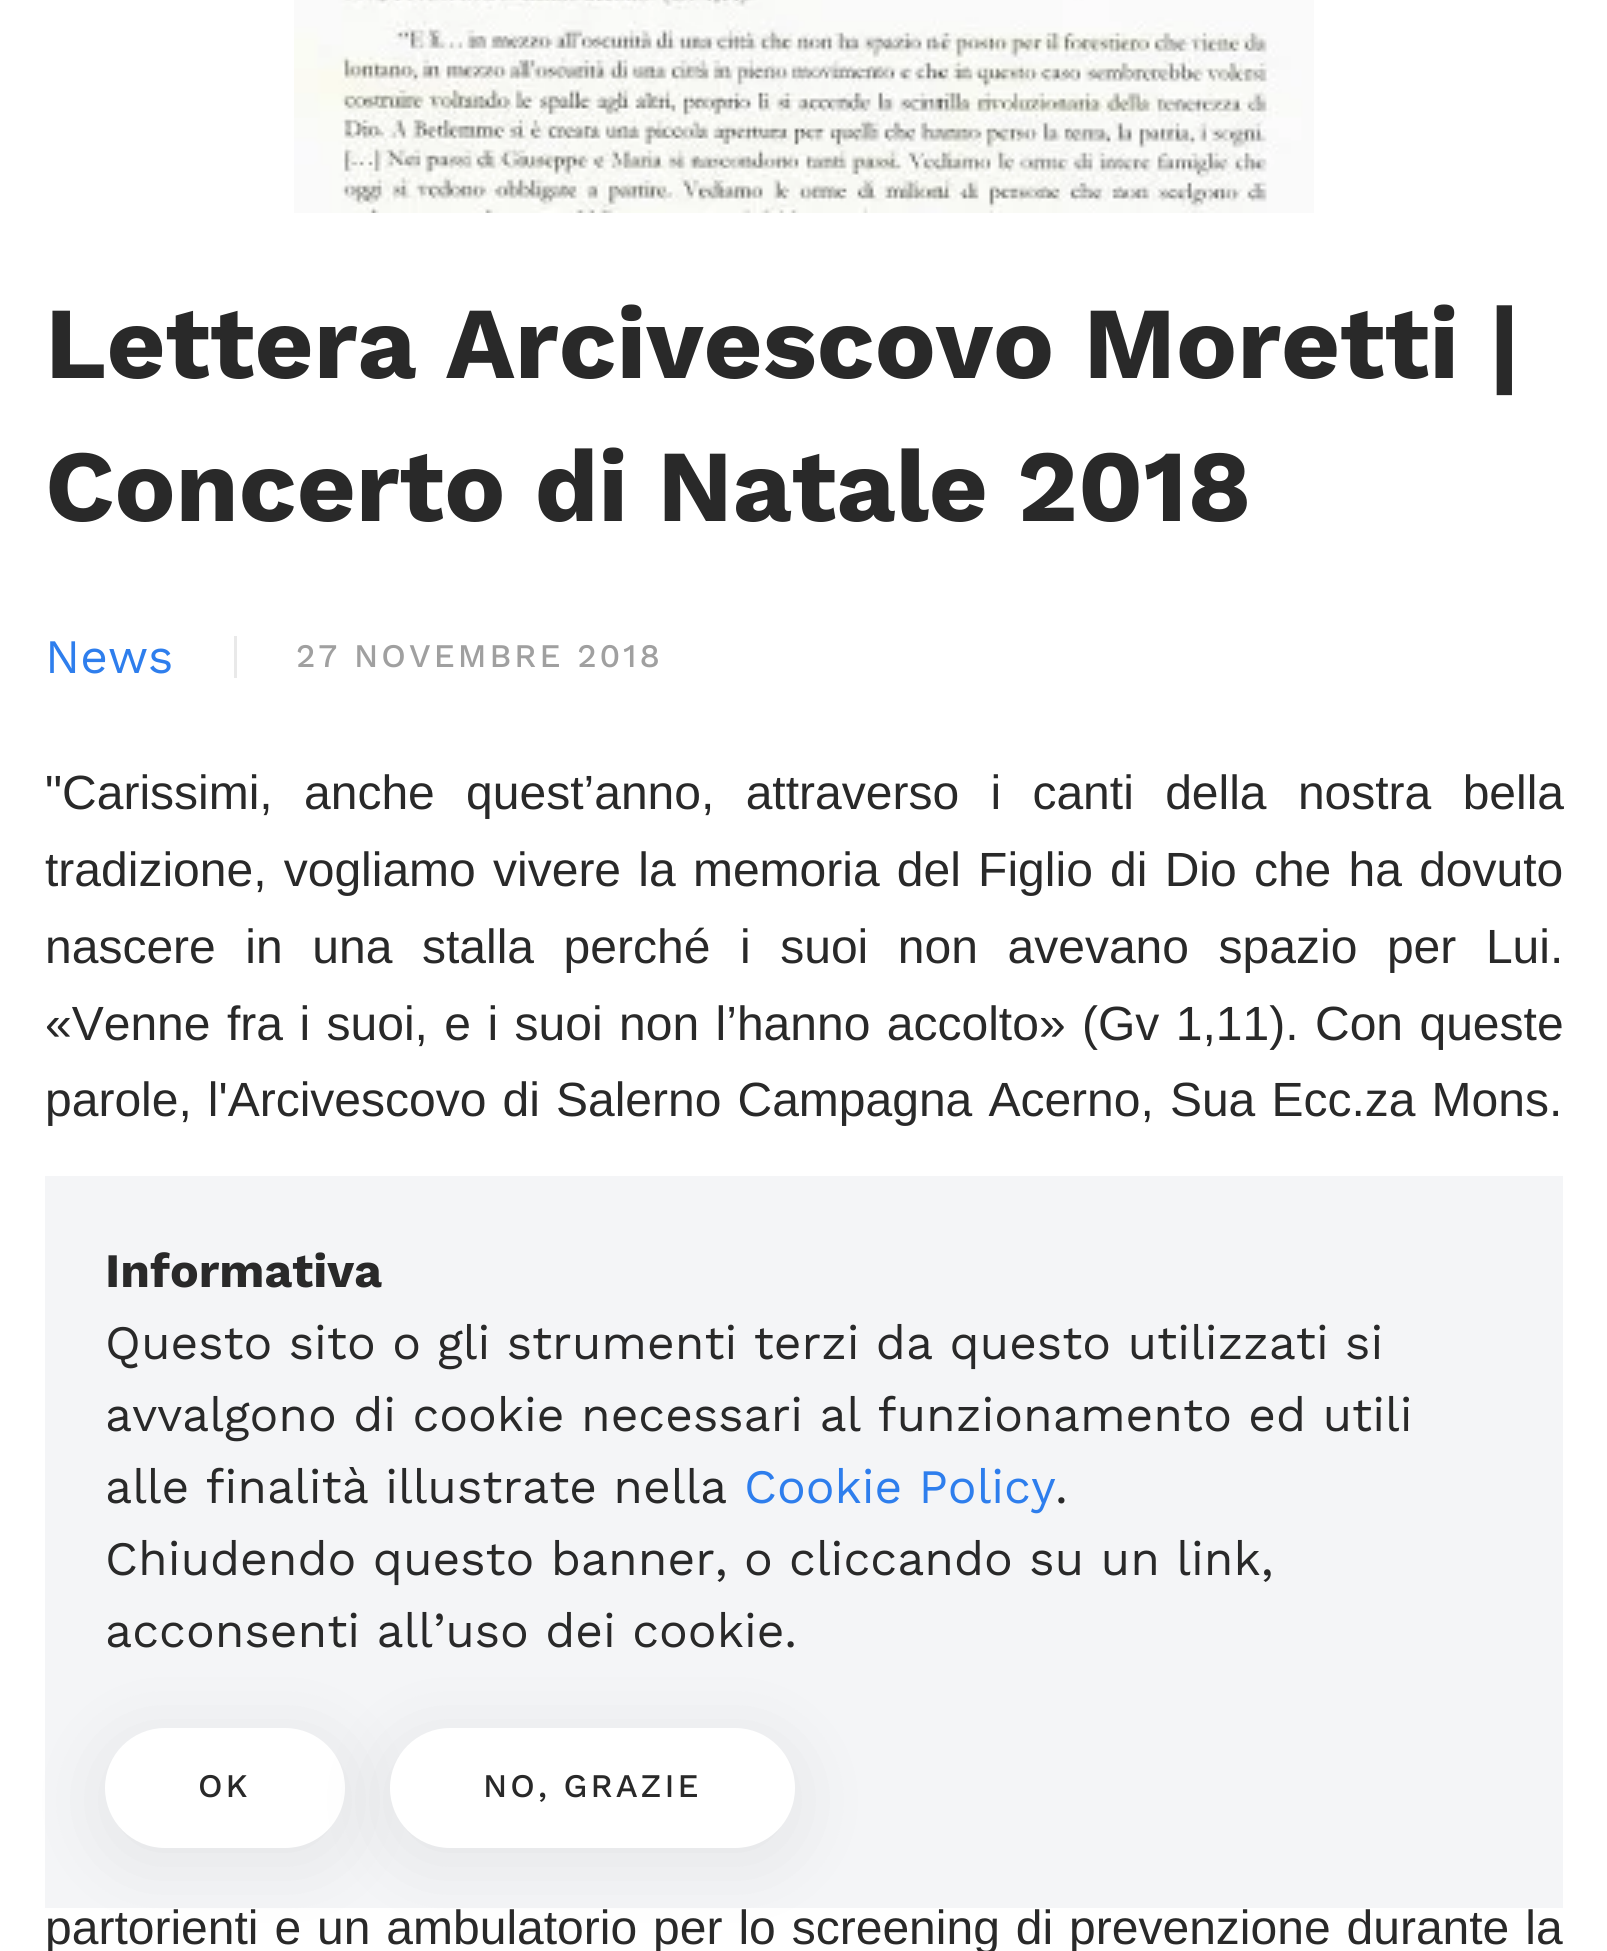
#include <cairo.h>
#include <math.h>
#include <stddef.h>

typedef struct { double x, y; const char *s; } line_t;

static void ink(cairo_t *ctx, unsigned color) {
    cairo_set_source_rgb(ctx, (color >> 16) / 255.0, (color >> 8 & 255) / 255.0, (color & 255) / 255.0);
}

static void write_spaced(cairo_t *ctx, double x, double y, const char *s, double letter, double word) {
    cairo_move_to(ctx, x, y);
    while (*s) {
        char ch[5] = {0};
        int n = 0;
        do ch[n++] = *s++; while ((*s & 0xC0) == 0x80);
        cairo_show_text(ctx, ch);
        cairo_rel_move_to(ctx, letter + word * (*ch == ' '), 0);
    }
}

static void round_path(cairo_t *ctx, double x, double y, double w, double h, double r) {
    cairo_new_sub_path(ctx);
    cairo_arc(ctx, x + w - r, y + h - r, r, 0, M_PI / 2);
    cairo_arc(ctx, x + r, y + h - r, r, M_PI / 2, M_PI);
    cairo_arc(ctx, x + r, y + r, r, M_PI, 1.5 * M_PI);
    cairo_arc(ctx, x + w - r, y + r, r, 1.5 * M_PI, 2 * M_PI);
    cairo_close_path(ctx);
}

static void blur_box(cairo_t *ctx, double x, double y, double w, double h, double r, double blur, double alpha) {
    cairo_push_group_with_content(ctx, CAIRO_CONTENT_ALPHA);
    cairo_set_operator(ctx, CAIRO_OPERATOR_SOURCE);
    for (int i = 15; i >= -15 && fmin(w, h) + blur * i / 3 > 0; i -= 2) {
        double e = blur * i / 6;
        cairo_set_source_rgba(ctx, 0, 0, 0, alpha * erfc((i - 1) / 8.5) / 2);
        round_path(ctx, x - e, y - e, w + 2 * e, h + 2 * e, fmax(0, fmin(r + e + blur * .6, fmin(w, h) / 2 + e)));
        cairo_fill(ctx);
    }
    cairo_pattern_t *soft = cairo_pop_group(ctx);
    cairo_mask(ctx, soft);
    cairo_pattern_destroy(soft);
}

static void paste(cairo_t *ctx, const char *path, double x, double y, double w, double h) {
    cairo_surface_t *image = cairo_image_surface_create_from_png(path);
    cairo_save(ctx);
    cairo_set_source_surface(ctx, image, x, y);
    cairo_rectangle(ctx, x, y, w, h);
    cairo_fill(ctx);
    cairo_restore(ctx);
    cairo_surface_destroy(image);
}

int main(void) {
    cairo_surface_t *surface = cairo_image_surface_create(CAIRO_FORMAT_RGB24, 1607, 1951);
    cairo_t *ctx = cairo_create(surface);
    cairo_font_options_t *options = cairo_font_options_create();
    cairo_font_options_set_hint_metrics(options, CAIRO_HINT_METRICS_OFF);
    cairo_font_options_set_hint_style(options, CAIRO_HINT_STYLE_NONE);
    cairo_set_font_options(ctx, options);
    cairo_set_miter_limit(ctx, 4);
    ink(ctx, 0xFFFFFF);
    cairo_paint(ctx);
    paste(ctx, "media/1.png", 294, 0, 1020, 213);
    cairo_select_font_face(ctx, "Work Sans", CAIRO_FONT_SLANT_NORMAL, CAIRO_FONT_WEIGHT_BOLD);
    cairo_set_font_size(ctx, 102);
    ink(ctx, 0x292929);
    cairo_move_to(ctx, 45, 378);
    cairo_show_text(ctx, "Lettera Arcivescovo Moretti |");
    cairo_move_to(ctx, 45, 521);
    cairo_show_text(ctx, "Concerto di Natale 2018");
    cairo_select_font_face(ctx, "Work Sans", CAIRO_FONT_SLANT_NORMAL, CAIRO_FONT_WEIGHT_NORMAL);
    cairo_set_font_size(ctx, 48);
    ink(ctx, 0x2E7EED);
    cairo_move_to(ctx, 45, 673);
    cairo_show_text(ctx, "News");
    ink(ctx, 0xE9E9E9);
    cairo_rectangle(ctx, 234, 636, 3, 42);
    cairo_fill(ctx);
    cairo_select_font_face(ctx, "Work Sans Medium", CAIRO_FONT_SLANT_NORMAL, CAIRO_FONT_WEIGHT_NORMAL);
    cairo_set_font_size(ctx, 33);
    ink(ctx, 0xA0A0A0);
    write_spaced(ctx, 296, 667, "27 NOVEMBRE 2018", 3, 0);
    cairo_select_font_face(ctx, "Liberation Sans", CAIRO_FONT_SLANT_NORMAL, CAIRO_FONT_WEIGHT_NORMAL);
    cairo_set_font_size(ctx, 48);
    ink(ctx, 0x292929);
    cairo_move_to(ctx, 45, 809);
    cairo_show_text(ctx, "\"Carissimi,");
    write_spaced(ctx, 304, 809, "anche quest’anno, attraverso i canti della nostra bella", 0, 18);
    write_spaced(ctx, 45, 886, "tradizione, vogliamo vivere la memoria del Figlio di Dio che ha dovuto", 0, 3.9);
    write_spaced(ctx, 45, 963, "nascere in una stalla perché i suoi non avevano spazio per Lui.", 0, 16.25);
    write_spaced(ctx, 45, 1040, "«Venne fra i suoi, e i suoi non l’hanno accolto» (Gv 1,11). Con queste", 0, 3.1);
    write_spaced(ctx, 45, 1116, "parole, l'Arcivescovo di Salerno Campagna Acerno, Sua Ecc.za Mons.", 0, 2.75);
    write_spaced(ctx, 45, 1944, "partorienti e un ambulatorio per lo screening di prevenzione durante la", 0, 2.6);
    ink(ctx, 0xF4F5F7);
    cairo_rectangle(ctx, 45, 1176, 1518, 732);
    cairo_fill(ctx);
    cairo_select_font_face(ctx, "Work Sans", CAIRO_FONT_SLANT_NORMAL, CAIRO_FONT_WEIGHT_BOLD);
    ink(ctx, 0x292929);
    cairo_move_to(ctx, 105, 1287);
    cairo_show_text(ctx, "Informativa");
    cairo_select_font_face(ctx, "Work Sans", CAIRO_FONT_SLANT_NORMAL, CAIRO_FONT_WEIGHT_NORMAL);
    {
        static const line_t items[] = {
            {105, 1359, "Questo sito o gli strumenti terzi da questo utilizzati si"},
            {105, 1431, "avvalgono di cookie necessari al funzionamento ed utili"},
            {105, 1503, "alle finalità illustrate nella"},
        };
        for (size_t i = 0; i < sizeof items / sizeof *items; i++) {
            cairo_move_to(ctx, items[i].x, items[i].y);
            cairo_show_text(ctx, items[i].s);
        }
    }
    ink(ctx, 0x2E7EED);
    cairo_move_to(ctx, 744, 1503);
    cairo_show_text(ctx, "Cookie Policy");
    ink(ctx, 0x292929);
    {
        static const line_t items[] = {
            {1055, 1503, "."},
            {105, 1575, "Chiudendo questo banner, o cliccando su un link,"},
            {105, 1647, "acconsenti all’uso dei cookie."},
        };
        for (size_t i = 0; i < sizeof items / sizeof *items; i++) {
            cairo_move_to(ctx, items[i].x, items[i].y);
            cairo_show_text(ctx, items[i].s);
        }
    }
    ink(ctx, 0x000000);
    blur_box(ctx, 105, 1740, 240, 120, 60, 42, 0.07);
    ink(ctx, 0xFFFFFF);
    round_path(ctx, 105, 1728, 240, 120, 60);
    cairo_fill(ctx);
    cairo_select_font_face(ctx, "Work Sans Medium", CAIRO_FONT_SLANT_NORMAL, CAIRO_FONT_WEIGHT_NORMAL);
    cairo_set_font_size(ctx, 33);
    ink(ctx, 0x292929);
    write_spaced(ctx, 198, 1797, "OK", 3, 0);
    ink(ctx, 0x000000);
    blur_box(ctx, 390, 1740, 405, 120, 60, 42, 0.07);
    ink(ctx, 0xFFFFFF);
    round_path(ctx, 390, 1728, 405, 120, 60);
    cairo_fill(ctx);
    ink(ctx, 0x292929);
    write_spaced(ctx, 483, 1797, "NO, GRAZIE", 3, 0);
    cairo_surface_write_to_png(surface, "image.png");
    cairo_font_options_destroy(options);
    cairo_destroy(ctx);
    cairo_surface_destroy(surface);
    return 0;
}
